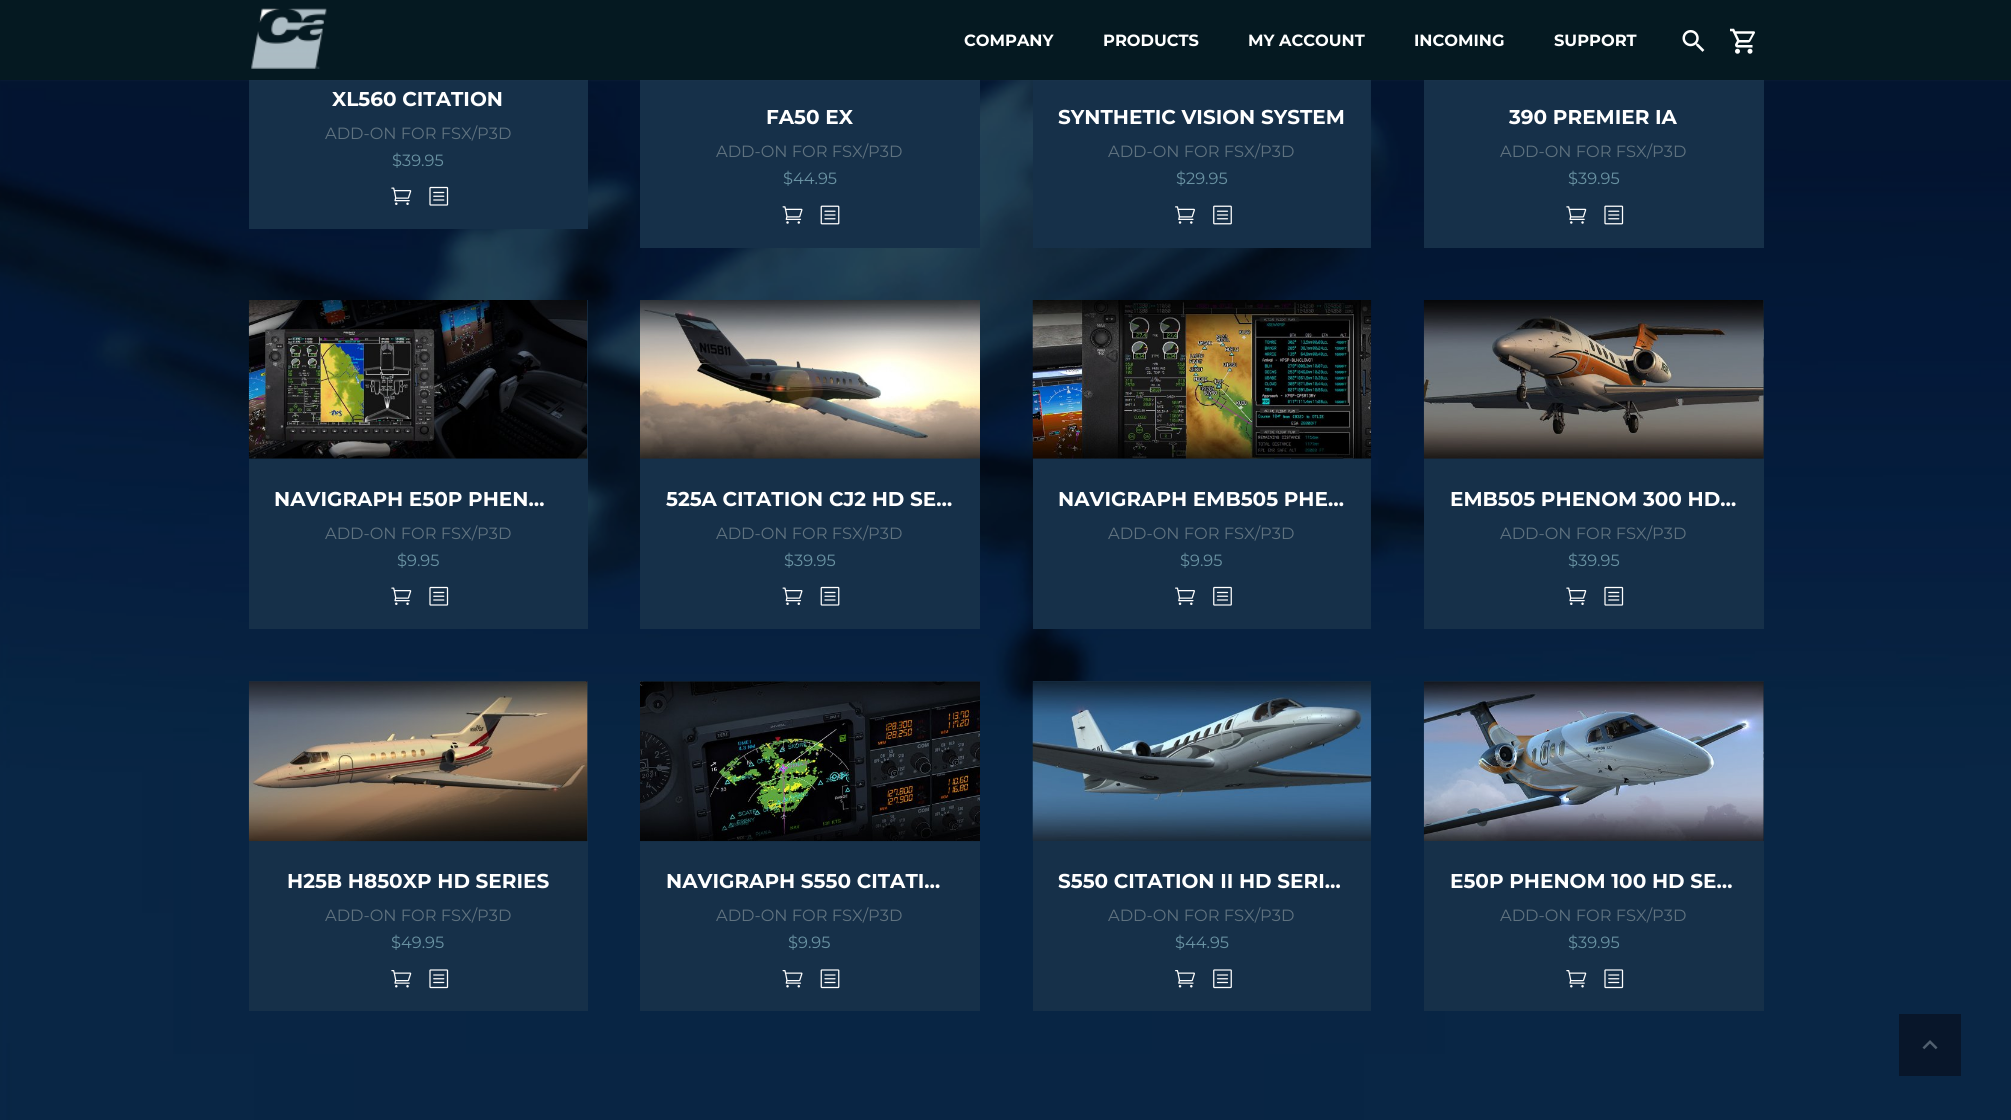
#include <cairo.h>
#include <math.h>
#include <stddef.h>

typedef struct { double x, y; const char *s; } line_t;
typedef struct { double x, y, w, h; unsigned color; } box_t;

static void ink(cairo_t *ctx, unsigned color) {
    cairo_set_source_rgb(ctx, (color >> 16) / 255.0, (color >> 8 & 255) / 255.0, (color & 255) / 255.0);
}

static void round_path(cairo_t *ctx, double x, double y, double w, double h, double r) {
    cairo_new_sub_path(ctx);
    cairo_arc(ctx, x + w - r, y + h - r, r, 0, M_PI / 2);
    cairo_arc(ctx, x + r, y + h - r, r, M_PI / 2, M_PI);
    cairo_arc(ctx, x + r, y + r, r, M_PI, 1.5 * M_PI);
    cairo_arc(ctx, x + w - r, y + r, r, 1.5 * M_PI, 2 * M_PI);
    cairo_close_path(ctx);
}

static void blur_box(cairo_t *ctx, double x, double y, double w, double h, double r, double blur, double alpha) {
    cairo_push_group_with_content(ctx, CAIRO_CONTENT_ALPHA);
    cairo_set_operator(ctx, CAIRO_OPERATOR_SOURCE);
    for (int i = 15; i >= -15 && fmin(w, h) + blur * i / 3 > 0; i -= 2) {
        double e = blur * i / 6;
        cairo_set_source_rgba(ctx, 0, 0, 0, alpha * erfc((i - 1) / 8.5) / 2);
        round_path(ctx, x - e, y - e, w + 2 * e, h + 2 * e, fmax(0, fmin(r + e + blur * .6, fmin(w, h) / 2 + e)));
        cairo_fill(ctx);
    }
    cairo_pattern_t *soft = cairo_pop_group(ctx);
    cairo_mask(ctx, soft);
    cairo_pattern_destroy(soft);
}

static void paste(cairo_t *ctx, const char *path, double x, double y, double w, double h) {
    cairo_surface_t *image = cairo_image_surface_create_from_png(path);
    cairo_save(ctx);
    cairo_set_source_surface(ctx, image, x, y);
    cairo_rectangle(ctx, x, y, w, h);
    cairo_fill(ctx);
    cairo_restore(ctx);
    cairo_surface_destroy(image);
}

int main(void) {
    cairo_surface_t *surface = cairo_image_surface_create(CAIRO_FORMAT_RGB24, 2011, 1120);
    cairo_t *ctx = cairo_create(surface);
    cairo_font_options_t *options = cairo_font_options_create();
    cairo_font_options_set_hint_metrics(options, CAIRO_HINT_METRICS_OFF);
    cairo_font_options_set_hint_style(options, CAIRO_HINT_STYLE_NONE);
    cairo_set_font_options(ctx, options);
    cairo_set_miter_limit(ctx, 4);
    ink(ctx, 0xFFFFFF);
    cairo_paint(ctx);
    paste(ctx, "media/4.png", 0, 80, 2011, 1040);
    {
        static const box_t items[] = {
            {249, 80, 339, 149, 0x163049},
            {640, 80, 340, 168, 0x163049},
            {1033, 80, 338, 168, 0x163049},
            {1424, 80, 340, 168, 0x163049},
        };
        for (size_t i = 0; i < sizeof items / sizeof *items; i++) {
            ink(ctx, items[i].color);
            cairo_rectangle(ctx, items[i].x, items[i].y, items[i].w, items[i].h);
            cairo_fill(ctx);
        }
    }
    ink(ctx, 0x384554);
    blur_box(ctx, 0, 0, 2011, 80, 0, 1, 0.2);
    ink(ctx, 0x051921);
    cairo_rectangle(ctx, 0, 0, 2011, 80);
    cairo_fill(ctx);
    paste(ctx, "media/1.png", 251, 8, 76, 61);
    cairo_select_font_face(ctx, "Montserrat", CAIRO_FONT_SLANT_NORMAL, CAIRO_FONT_WEIGHT_BOLD);
    cairo_set_font_size(ctx, 16.25);
    ink(ctx, 0xFFFFFF);
    {
        static const line_t items[] = {
            {964, 46, "COMPANY"},
            {1103, 46, "PRODUCTS"},
            {1248, 46, "MY ACCOUNT"},
            {1414, 46, "INCOMING"},
            {1554, 46, "SUPPORT"},
        };
        for (size_t i = 0; i < sizeof items / sizeof *items; i++) {
            cairo_move_to(ctx, items[i].x, items[i].y);
            cairo_show_text(ctx, items[i].s);
        }
    }
    paste(ctx, "media/2.png", 1682, 30, 23, 22);
    paste(ctx, "media/3.png", 1730, 28, 25, 26);
    cairo_set_font_size(ctx, 20);
    cairo_move_to(ctx, 332, 106);
    cairo_show_text(ctx, "XL560 CITATION");
    cairo_select_font_face(ctx, "Montserrat", CAIRO_FONT_SLANT_NORMAL, CAIRO_FONT_WEIGHT_NORMAL);
    cairo_set_font_size(ctx, 16.25);
    ink(ctx, 0x5F727F);
    cairo_move_to(ctx, 325, 139);
    cairo_show_text(ctx, "ADD-ON FOR FSX/P3D");
    ink(ctx, 0x6992A2);
    cairo_move_to(ctx, 392, 166);
    cairo_show_text(ctx, "$39.95");
    paste(ctx, "media/5.png", 391, 187, 21, 18);
    paste(ctx, "media/6.png", 429, 186, 20, 20);
    cairo_select_font_face(ctx, "Montserrat", CAIRO_FONT_SLANT_NORMAL, CAIRO_FONT_WEIGHT_BOLD);
    cairo_set_font_size(ctx, 20);
    ink(ctx, 0xFFFFFF);
    cairo_move_to(ctx, 766, 124);
    cairo_show_text(ctx, "FA50 EX");
    cairo_select_font_face(ctx, "Montserrat", CAIRO_FONT_SLANT_NORMAL, CAIRO_FONT_WEIGHT_NORMAL);
    cairo_set_font_size(ctx, 16.25);
    ink(ctx, 0x5F727F);
    cairo_move_to(ctx, 716, 157);
    cairo_show_text(ctx, "ADD-ON FOR FSX/P3D");
    ink(ctx, 0x6992A2);
    cairo_move_to(ctx, 783, 184);
    cairo_show_text(ctx, "$44.95");
    paste(ctx, "media/7.png", 782, 206, 21, 18);
    paste(ctx, "media/8.png", 820, 205, 20, 20);
    cairo_select_font_face(ctx, "Montserrat", CAIRO_FONT_SLANT_NORMAL, CAIRO_FONT_WEIGHT_BOLD);
    cairo_set_font_size(ctx, 20);
    ink(ctx, 0xFFFFFF);
    cairo_move_to(ctx, 1058, 124);
    cairo_show_text(ctx, "SYNTHETIC VISION SYSTEM");
    cairo_select_font_face(ctx, "Montserrat", CAIRO_FONT_SLANT_NORMAL, CAIRO_FONT_WEIGHT_NORMAL);
    cairo_set_font_size(ctx, 16.25);
    ink(ctx, 0x5F727F);
    cairo_move_to(ctx, 1108, 157);
    cairo_show_text(ctx, "ADD-ON FOR FSX/P3D");
    ink(ctx, 0x6992A2);
    cairo_move_to(ctx, 1176, 184);
    cairo_show_text(ctx, "$29.95");
    paste(ctx, "media/9.png", 1175, 206, 20, 18);
    paste(ctx, "media/10.png", 1213, 205, 19, 20);
    cairo_select_font_face(ctx, "Montserrat", CAIRO_FONT_SLANT_NORMAL, CAIRO_FONT_WEIGHT_BOLD);
    cairo_set_font_size(ctx, 20);
    ink(ctx, 0xFFFFFF);
    cairo_move_to(ctx, 1509, 124);
    cairo_show_text(ctx, "390 PREMIER IA");
    cairo_select_font_face(ctx, "Montserrat", CAIRO_FONT_SLANT_NORMAL, CAIRO_FONT_WEIGHT_NORMAL);
    cairo_set_font_size(ctx, 16.25);
    ink(ctx, 0x5F727F);
    cairo_move_to(ctx, 1500, 157);
    cairo_show_text(ctx, "ADD-ON FOR FSX/P3D");
    ink(ctx, 0x6992A2);
    cairo_move_to(ctx, 1568, 184);
    cairo_show_text(ctx, "$39.95");
    paste(ctx, "media/11.png", 1566, 206, 21, 18);
    paste(ctx, "media/12.png", 1604, 205, 20, 20);
    ink(ctx, 0x163049);
    cairo_rectangle(ctx, 249, 300, 339, 329);
    cairo_fill(ctx);
    paste(ctx, "media/13.png", 248, 300, 340, 159);
    cairo_select_font_face(ctx, "Montserrat", CAIRO_FONT_SLANT_NORMAL, CAIRO_FONT_WEIGHT_BOLD);
    cairo_set_font_size(ctx, 20);
    ink(ctx, 0xFFFFFF);
    cairo_move_to(ctx, 274, 506);
    cairo_show_text(ctx, "NAVIGRAPH E50P PHEN…");
    cairo_select_font_face(ctx, "Montserrat", CAIRO_FONT_SLANT_NORMAL, CAIRO_FONT_WEIGHT_NORMAL);
    cairo_set_font_size(ctx, 16.25);
    ink(ctx, 0x5F727F);
    cairo_move_to(ctx, 325, 539);
    cairo_show_text(ctx, "ADD-ON FOR FSX/P3D");
    ink(ctx, 0x6992A2);
    cairo_move_to(ctx, 397, 566);
    cairo_show_text(ctx, "$9.95");
    paste(ctx, "media/5.png", 391, 587, 21, 18);
    paste(ctx, "media/6.png", 429, 586, 20, 20);
    ink(ctx, 0x163049);
    cairo_rectangle(ctx, 640, 458, 340, 171);
    cairo_fill(ctx);
    paste(ctx, "media/14.png", 640, 300, 340, 159);
    cairo_select_font_face(ctx, "Montserrat", CAIRO_FONT_SLANT_NORMAL, CAIRO_FONT_WEIGHT_BOLD);
    cairo_set_font_size(ctx, 20);
    ink(ctx, 0xFFFFFF);
    cairo_move_to(ctx, 666, 506);
    cairo_show_text(ctx, "525A CITATION CJ2 HD SE…");
    cairo_select_font_face(ctx, "Montserrat", CAIRO_FONT_SLANT_NORMAL, CAIRO_FONT_WEIGHT_NORMAL);
    cairo_set_font_size(ctx, 16.25);
    ink(ctx, 0x5F727F);
    cairo_move_to(ctx, 716, 539);
    cairo_show_text(ctx, "ADD-ON FOR FSX/P3D");
    ink(ctx, 0x6992A2);
    cairo_move_to(ctx, 784, 566);
    cairo_show_text(ctx, "$39.95");
    paste(ctx, "media/15.png", 782, 587, 21, 18);
    paste(ctx, "media/16.png", 820, 586, 20, 20);
    ink(ctx, 0x163049);
    cairo_rectangle(ctx, 1033, 458, 338, 171);
    cairo_fill(ctx);
    paste(ctx, "media/17.png", 1032, 300, 340, 159);
    cairo_select_font_face(ctx, "Montserrat", CAIRO_FONT_SLANT_NORMAL, CAIRO_FONT_WEIGHT_BOLD);
    cairo_set_font_size(ctx, 20);
    ink(ctx, 0xFFFFFF);
    cairo_move_to(ctx, 1058, 506);
    cairo_show_text(ctx, "NAVIGRAPH EMB505 PHE…");
    cairo_select_font_face(ctx, "Montserrat", CAIRO_FONT_SLANT_NORMAL, CAIRO_FONT_WEIGHT_NORMAL);
    cairo_set_font_size(ctx, 16.25);
    ink(ctx, 0x5F727F);
    cairo_move_to(ctx, 1108, 539);
    cairo_show_text(ctx, "ADD-ON FOR FSX/P3D");
    ink(ctx, 0x6992A2);
    cairo_move_to(ctx, 1180, 566);
    cairo_show_text(ctx, "$9.95");
    paste(ctx, "media/18.png", 1175, 587, 20, 18);
    paste(ctx, "media/19.png", 1213, 586, 19, 20);
    ink(ctx, 0x163049);
    cairo_rectangle(ctx, 1424, 300, 340, 329);
    cairo_fill(ctx);
    paste(ctx, "media/20.png", 1423, 300, 341, 159);
    paste(ctx, "media/21.png", 1763, 301, 1, 158);
    cairo_select_font_face(ctx, "Montserrat", CAIRO_FONT_SLANT_NORMAL, CAIRO_FONT_WEIGHT_BOLD);
    cairo_set_font_size(ctx, 20);
    ink(ctx, 0xFFFFFF);
    cairo_move_to(ctx, 1450, 506);
    cairo_show_text(ctx, "EMB505 PHENOM 300 HD…");
    cairo_select_font_face(ctx, "Montserrat", CAIRO_FONT_SLANT_NORMAL, CAIRO_FONT_WEIGHT_NORMAL);
    cairo_set_font_size(ctx, 16.25);
    ink(ctx, 0x5F727F);
    cairo_move_to(ctx, 1500, 539);
    cairo_show_text(ctx, "ADD-ON FOR FSX/P3D");
    ink(ctx, 0x6992A2);
    cairo_move_to(ctx, 1568, 566);
    cairo_show_text(ctx, "$39.95");
    paste(ctx, "media/5.png", 1566, 587, 21, 18);
    paste(ctx, "media/6.png", 1604, 586, 20, 20);
    ink(ctx, 0x163049);
    cairo_rectangle(ctx, 249, 681, 339, 330);
    cairo_fill(ctx);
    paste(ctx, "media/22.png", 248, 681, 340, 161);
    cairo_select_font_face(ctx, "Montserrat", CAIRO_FONT_SLANT_NORMAL, CAIRO_FONT_WEIGHT_BOLD);
    cairo_set_font_size(ctx, 20);
    ink(ctx, 0xFFFFFF);
    cairo_move_to(ctx, 287, 888);
    cairo_show_text(ctx, "H25B H850XP HD SERIES");
    cairo_select_font_face(ctx, "Montserrat", CAIRO_FONT_SLANT_NORMAL, CAIRO_FONT_WEIGHT_NORMAL);
    cairo_set_font_size(ctx, 16.25);
    ink(ctx, 0x5F727F);
    cairo_move_to(ctx, 325, 921);
    cairo_show_text(ctx, "ADD-ON FOR FSX/P3D");
    ink(ctx, 0x6992A2);
    cairo_move_to(ctx, 391, 948);
    cairo_show_text(ctx, "$49.95");
    paste(ctx, "media/23.png", 391, 970, 21, 18);
    paste(ctx, "media/24.png", 429, 969, 20, 20);
    ink(ctx, 0x163049);
    cairo_rectangle(ctx, 640, 681, 340, 330);
    cairo_fill(ctx);
    paste(ctx, "media/25.png", 640, 681, 340, 161);
    cairo_select_font_face(ctx, "Montserrat", CAIRO_FONT_SLANT_NORMAL, CAIRO_FONT_WEIGHT_BOLD);
    cairo_set_font_size(ctx, 20);
    ink(ctx, 0xFFFFFF);
    cairo_move_to(ctx, 666, 888);
    cairo_show_text(ctx, "NAVIGRAPH S550 CITATI…");
    cairo_select_font_face(ctx, "Montserrat", CAIRO_FONT_SLANT_NORMAL, CAIRO_FONT_WEIGHT_NORMAL);
    cairo_set_font_size(ctx, 16.25);
    ink(ctx, 0x5F727F);
    cairo_move_to(ctx, 716, 921);
    cairo_show_text(ctx, "ADD-ON FOR FSX/P3D");
    ink(ctx, 0x6992A2);
    cairo_move_to(ctx, 788, 948);
    cairo_show_text(ctx, "$9.95");
    paste(ctx, "media/26.png", 782, 970, 21, 18);
    paste(ctx, "media/27.png", 820, 969, 20, 20);
    ink(ctx, 0x163049);
    cairo_rectangle(ctx, 1033, 681, 338, 330);
    cairo_fill(ctx);
    paste(ctx, "media/28.png", 1032, 681, 340, 160);
    cairo_select_font_face(ctx, "Montserrat", CAIRO_FONT_SLANT_NORMAL, CAIRO_FONT_WEIGHT_BOLD);
    cairo_set_font_size(ctx, 20);
    ink(ctx, 0xFFFFFF);
    cairo_move_to(ctx, 1058, 888);
    cairo_show_text(ctx, "S550 CITATION II HD SERI…");
    cairo_select_font_face(ctx, "Montserrat", CAIRO_FONT_SLANT_NORMAL, CAIRO_FONT_WEIGHT_NORMAL);
    cairo_set_font_size(ctx, 16.25);
    ink(ctx, 0x5F727F);
    cairo_move_to(ctx, 1108, 921);
    cairo_show_text(ctx, "ADD-ON FOR FSX/P3D");
    ink(ctx, 0x6992A2);
    cairo_move_to(ctx, 1175, 948);
    cairo_show_text(ctx, "$44.95");
    paste(ctx, "media/29.png", 1175, 970, 20, 18);
    paste(ctx, "media/30.png", 1213, 969, 19, 20);
    ink(ctx, 0x163049);
    cairo_rectangle(ctx, 1424, 681, 340, 330);
    cairo_fill(ctx);
    paste(ctx, "media/31.png", 1423, 681, 341, 160);
    paste(ctx, "media/32.png", 1763, 681, 1, 160);
    cairo_select_font_face(ctx, "Montserrat", CAIRO_FONT_SLANT_NORMAL, CAIRO_FONT_WEIGHT_BOLD);
    cairo_set_font_size(ctx, 20);
    ink(ctx, 0xFFFFFF);
    cairo_move_to(ctx, 1450, 888);
    cairo_show_text(ctx, "E50P PHENOM 100 HD SE…");
    cairo_select_font_face(ctx, "Montserrat", CAIRO_FONT_SLANT_NORMAL, CAIRO_FONT_WEIGHT_NORMAL);
    cairo_set_font_size(ctx, 16.25);
    ink(ctx, 0x5F727F);
    cairo_move_to(ctx, 1500, 921);
    cairo_show_text(ctx, "ADD-ON FOR FSX/P3D");
    ink(ctx, 0x6992A2);
    cairo_move_to(ctx, 1568, 948);
    cairo_show_text(ctx, "$39.95");
    paste(ctx, "media/23.png", 1566, 970, 21, 18);
    paste(ctx, "media/24.png", 1604, 969, 20, 20);
    ink(ctx, 0x08162A);
    cairo_rectangle(ctx, 1899, 1014, 62, 62);
    cairo_fill(ctx);
    paste(ctx, "media/33.png", 1922, 1040, 16, 10);
    cairo_surface_write_to_png(surface, "image.png");
    cairo_font_options_destroy(options);
    cairo_destroy(ctx);
    cairo_surface_destroy(surface);
    return 0;
}
